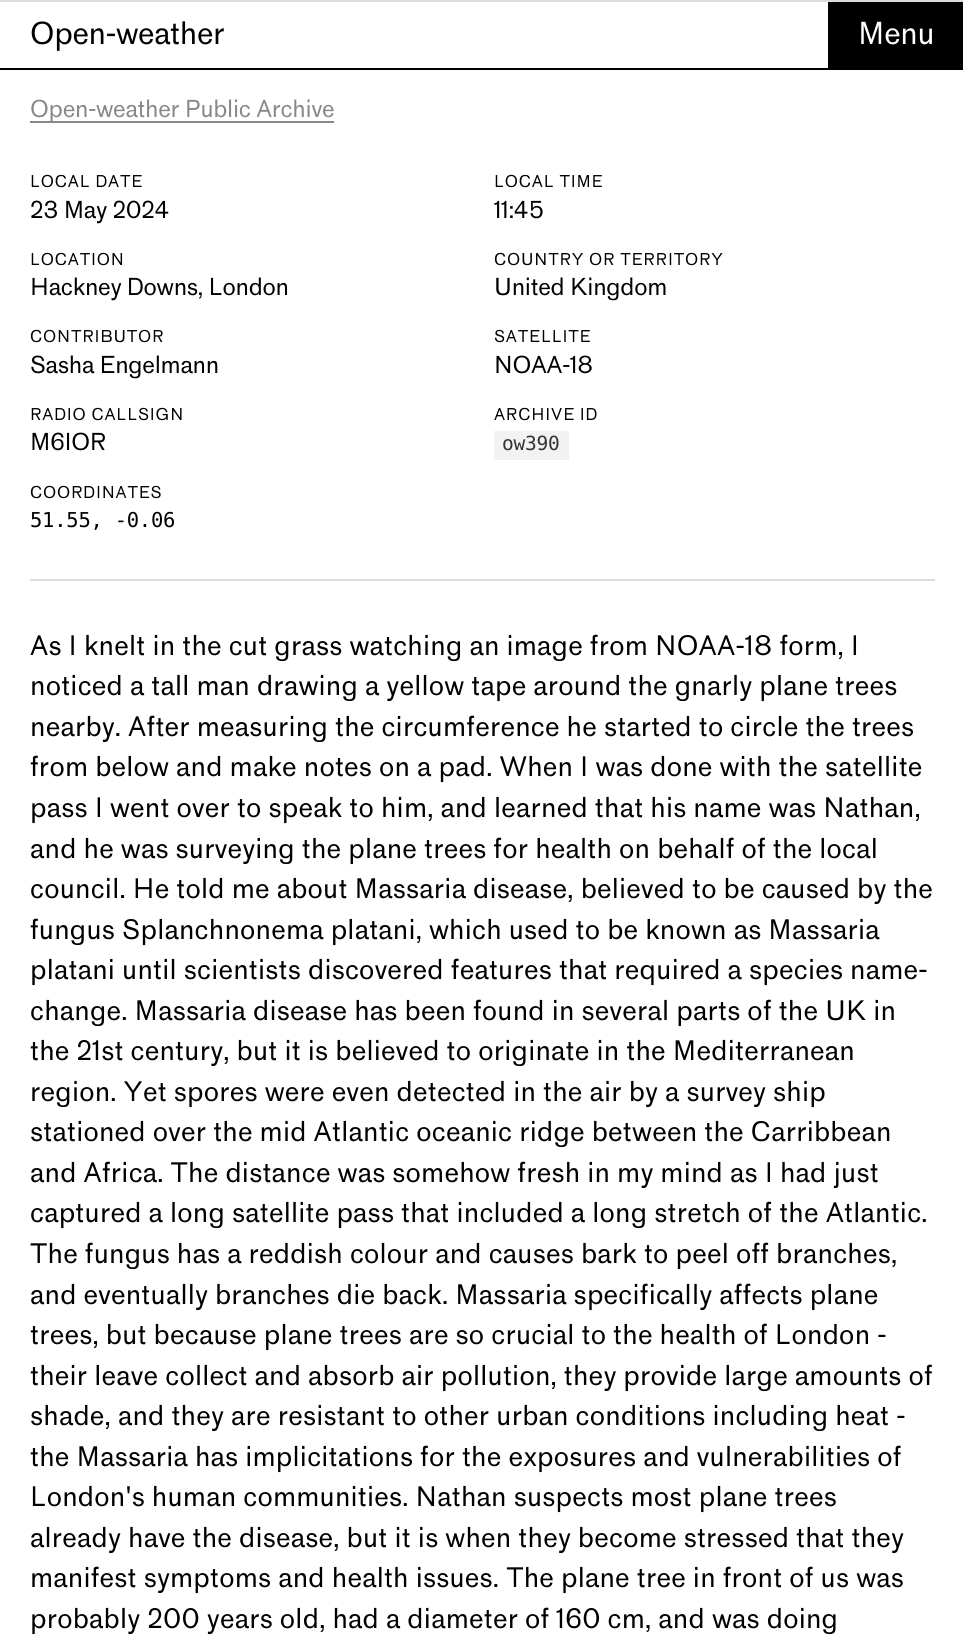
#include <cairo.h>
#include <math.h>
#include <stddef.h>

typedef struct { double x, y; const char *s; } line_t;

static void ink(cairo_t *ctx, unsigned color) {
    cairo_set_source_rgb(ctx, (color >> 16) / 255.0, (color >> 8 & 255) / 255.0, (color & 255) / 255.0);
}

static void write_spaced(cairo_t *ctx, double x, double y, const char *s, double letter, double word) {
    cairo_move_to(ctx, x, y);
    while (*s) {
        char ch[5] = {0};
        int n = 0;
        do ch[n++] = *s++; while ((*s & 0xC0) == 0x80);
        cairo_show_text(ctx, ch);
        cairo_rel_move_to(ctx, letter + word * (*ch == ' '), 0);
    }
}

int main(void) {
    cairo_surface_t *surface = cairo_image_surface_create(CAIRO_FORMAT_RGB24, 963, 1645);
    cairo_t *ctx = cairo_create(surface);
    cairo_font_options_t *options = cairo_font_options_create();
    cairo_font_options_set_hint_metrics(options, CAIRO_HINT_METRICS_OFF);
    cairo_font_options_set_hint_style(options, CAIRO_HINT_STYLE_NONE);
    cairo_set_font_options(ctx, options);
    cairo_set_miter_limit(ctx, 4);
    ink(ctx, 0xFFFFFF);
    cairo_paint(ctx);
    ink(ctx, 0xDDDDDD);
    cairo_rectangle(ctx, 0, 0, 963, 2);
    cairo_fill(ctx);
    ink(ctx, 0x000000);
    cairo_rectangle(ctx, 0, 68, 963, 2);
    cairo_fill(ctx);
    cairo_select_font_face(ctx, "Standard", CAIRO_FONT_SLANT_NORMAL, CAIRO_FONT_WEIGHT_NORMAL);
    cairo_set_font_size(ctx, 29.5);
    write_spaced(ctx, 30, 44, "Open-weather", -0.25, 0);
    cairo_rectangle(ctx, 828, 2, 135, 66);
    cairo_fill(ctx);
    ink(ctx, 0xFFFFFF);
    write_spaced(ctx, 858, 44, "Menu", -0.25, 0);
    ink(ctx, 0x888888);
    cairo_rectangle(ctx, 30, 121, 304, 2);
    cairo_fill(ctx);
    cairo_set_font_size(ctx, 22.75);
    write_spaced(ctx, 30, 117, "Open-weather Public Archive", -0.25, 0);
    ink(ctx, 0xDDDDDD);
    cairo_rectangle(ctx, 30, 579, 905, 2);
    cairo_fill(ctx);
    cairo_set_font_size(ctx, 15.9);
    ink(ctx, 0x000000);
    write_spaced(ctx, 30, 187, "LOCAL DATE", 0.8, 0);
    cairo_set_font_size(ctx, 22.75);
    write_spaced(ctx, 30, 218, "23 May 2024", -0.25, 0);
    cairo_set_font_size(ctx, 15.9);
    write_spaced(ctx, 494, 187, "LOCAL TIME", 0.8, 0);
    cairo_set_font_size(ctx, 22.75);
    write_spaced(ctx, 494, 218, "11:45", -0.25, 0);
    cairo_set_font_size(ctx, 15.9);
    write_spaced(ctx, 30, 265, "LOCATION", 0.8, 0);
    cairo_set_font_size(ctx, 22.75);
    write_spaced(ctx, 30, 295, "Hackney Downs, London", -0.25, 0);
    cairo_set_font_size(ctx, 15.9);
    write_spaced(ctx, 494, 265, "COUNTRY OR TERRITORY", 0.8, 0);
    cairo_set_font_size(ctx, 22.75);
    write_spaced(ctx, 494, 295, "United Kingdom", -0.25, 0);
    cairo_set_font_size(ctx, 15.9);
    write_spaced(ctx, 30, 342, "CONTRIBUTOR", 0.8, 0);
    cairo_set_font_size(ctx, 22.75);
    write_spaced(ctx, 30, 373, "Sasha Engelmann", -0.25, 0);
    cairo_set_font_size(ctx, 15.9);
    write_spaced(ctx, 494, 342, "SATELLITE", 0.8, 0);
    cairo_set_font_size(ctx, 22.75);
    write_spaced(ctx, 494, 373, "NOAA-18", -0.25, 0);
    cairo_set_font_size(ctx, 15.9);
    write_spaced(ctx, 30, 420, "RADIO CALLSIGN", 0.8, 0);
    cairo_set_font_size(ctx, 22.75);
    write_spaced(ctx, 30, 450, "M6IOR", -0.25, 0);
    cairo_set_font_size(ctx, 15.9);
    write_spaced(ctx, 494, 420, "ARCHIVE ID", 0.8, 0);
    ink(ctx, 0xF2F2F2);
    cairo_rectangle(ctx, 494, 431, 75, 29);
    cairo_fill(ctx);
    cairo_select_font_face(ctx, "DejaVu Sans Mono", CAIRO_FONT_SLANT_NORMAL, CAIRO_FONT_WEIGHT_NORMAL);
    cairo_set_font_size(ctx, 19.5);
    ink(ctx, 0x333333);
    write_spaced(ctx, 502, 450, "ow390", -0.25, 0);
    cairo_select_font_face(ctx, "Standard", CAIRO_FONT_SLANT_NORMAL, CAIRO_FONT_WEIGHT_NORMAL);
    cairo_set_font_size(ctx, 15.9);
    ink(ctx, 0x000000);
    write_spaced(ctx, 30, 498, "COORDINATES", 0.8, 0);
    cairo_select_font_face(ctx, "DejaVu Sans Mono", CAIRO_FONT_SLANT_NORMAL, CAIRO_FONT_WEIGHT_NORMAL);
    cairo_set_font_size(ctx, 20.5);
    write_spaced(ctx, 30, 527, "51.55, -0.06", -0.25, 0);
    cairo_select_font_face(ctx, "Standard", CAIRO_FONT_SLANT_NORMAL, CAIRO_FONT_WEIGHT_NORMAL);
    cairo_set_font_size(ctx, 26.15);
    {
        static const line_t items[] = {
            {30, 655, "As I knelt in the cut grass watching an image from NOAA-18 form, I"},
            {30, 695, "noticed a tall man drawing a yellow tape around the gnarly plane trees"},
            {30, 736, "nearby. After measuring the circumference he started to circle the trees"},
            {30, 776, "from below and make notes on a pad. When I was done with the satellite"},
            {30, 817, "pass I went over to speak to him, and learned that his name was Nathan,"},
            {30, 858, "and he was surveying the plane trees for health on behalf of the local"},
            {30, 898, "council. He told me about Massaria disease, believed to be caused by the"},
            {30, 939, "fungus Splanchnonema platani, which used to be known as Massaria"},
            {30, 979, "platani until scientists discovered features that required a species name-"},
            {30, 1020, "change. Massaria disease has been found in several parts of the UK in"},
            {30, 1060, "the 21st century, but it is believed to originate in the Mediterranean"},
            {30, 1101, "region. Yet spores were even detected in the air by a survey ship"},
            {30, 1141, "stationed over the mid Atlantic oceanic ridge between the Carribbean"},
            {30, 1182, "and Africa. The distance was somehow fresh in my mind as I had just"},
            {30, 1222, "captured a long satellite pass that included a long stretch of the Atlantic."},
            {30, 1263, "The fungus has a reddish colour and causes bark to peel off branches,"},
            {30, 1304, "and eventually branches die back. Massaria specifically affects plane"},
            {30, 1344, "trees, but because plane trees are so crucial to the health of London -"},
            {30, 1385, "their leave collect and absorb air pollution, they provide large amounts of"},
            {30, 1425, "shade, and they are resistant to other urban conditions including heat -"},
            {30, 1466, "the Massaria has implicitations for the exposures and vulnerabilities of"},
            {30, 1506, "London's human communities. Nathan suspects most plane trees"},
            {30, 1547, "already have the disease, but it is when they become stressed that they"},
            {30, 1587, "manifest symptoms and health issues. The plane tree in front of us was"},
            {30, 1628, "probably 200 years old, had a diameter of 160 cm, and was doing"},
        };
        for (size_t i = 0; i < sizeof items / sizeof *items; i++) {
            write_spaced(ctx, items[i].x, items[i].y, items[i].s, 0.25, 0);
        }
    }
    cairo_surface_write_to_png(surface, "image.png");
    cairo_font_options_destroy(options);
    cairo_destroy(ctx);
    cairo_surface_destroy(surface);
    return 0;
}
